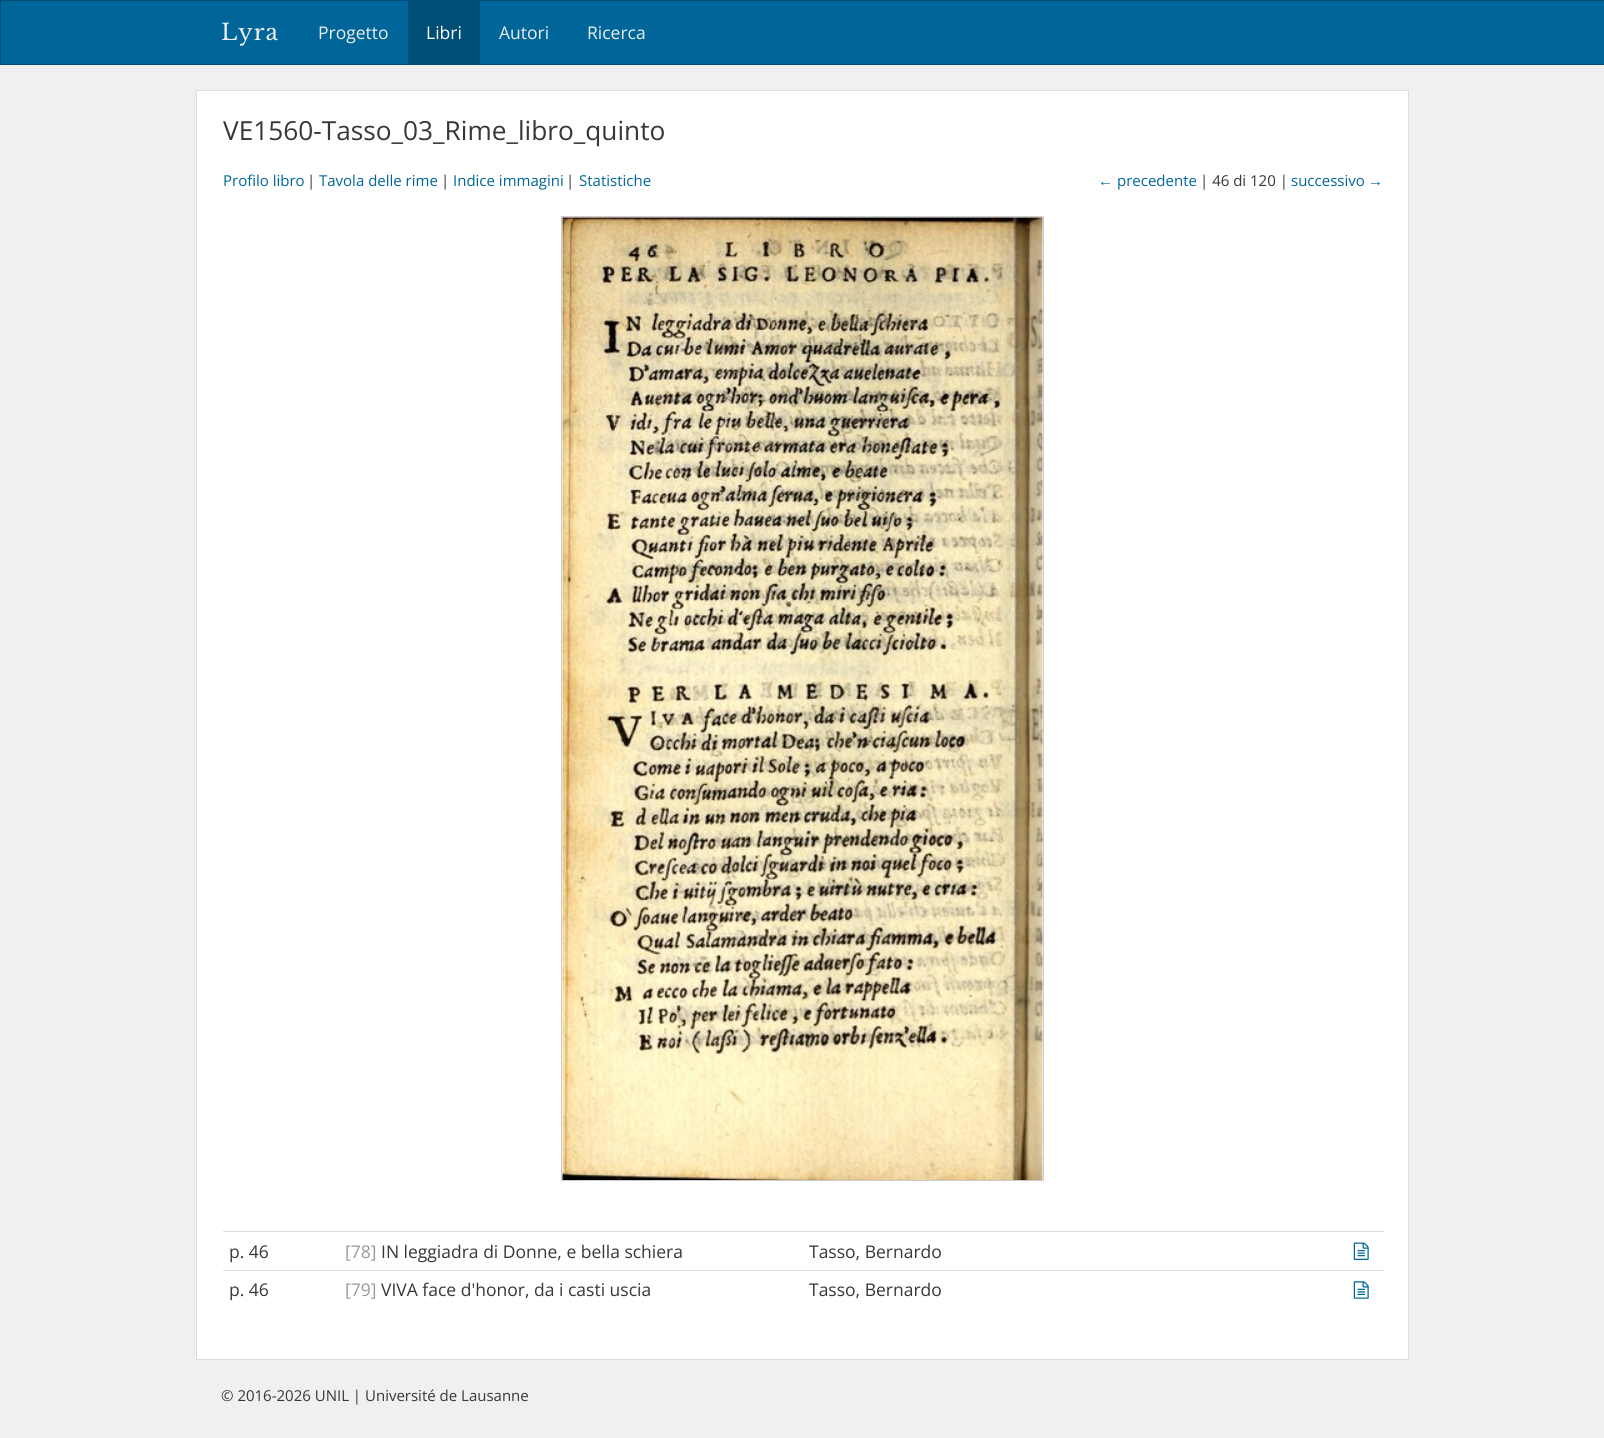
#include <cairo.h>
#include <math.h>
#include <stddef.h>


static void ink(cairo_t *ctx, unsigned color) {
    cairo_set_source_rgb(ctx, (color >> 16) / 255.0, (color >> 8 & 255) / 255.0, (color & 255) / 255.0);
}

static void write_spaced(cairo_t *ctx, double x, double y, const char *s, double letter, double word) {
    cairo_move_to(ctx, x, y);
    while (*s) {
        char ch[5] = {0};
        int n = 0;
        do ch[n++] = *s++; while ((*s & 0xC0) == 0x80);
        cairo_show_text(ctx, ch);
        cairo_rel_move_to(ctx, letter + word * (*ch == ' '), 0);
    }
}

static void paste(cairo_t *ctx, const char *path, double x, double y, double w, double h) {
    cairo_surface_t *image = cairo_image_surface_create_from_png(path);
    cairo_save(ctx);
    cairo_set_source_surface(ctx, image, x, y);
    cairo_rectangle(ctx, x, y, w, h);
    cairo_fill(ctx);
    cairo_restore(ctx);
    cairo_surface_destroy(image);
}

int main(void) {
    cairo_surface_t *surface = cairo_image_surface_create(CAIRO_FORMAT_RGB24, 1604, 1438);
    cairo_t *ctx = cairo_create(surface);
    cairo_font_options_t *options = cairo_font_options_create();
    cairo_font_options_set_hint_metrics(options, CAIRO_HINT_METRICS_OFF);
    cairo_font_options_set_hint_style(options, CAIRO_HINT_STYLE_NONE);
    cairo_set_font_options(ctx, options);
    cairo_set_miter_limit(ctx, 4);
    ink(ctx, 0xF0F0F0);
    cairo_paint(ctx);
    ink(ctx, 0x006699);
    cairo_rectangle(ctx, 0.5, 0.5, 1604, 64);
    cairo_fill_preserve(ctx);
    ink(ctx, 0x004E75);
    cairo_set_line_width(ctx, 1);
    cairo_stroke(ctx);
    cairo_select_font_face(ctx, "Libre Baskerville", CAIRO_FONT_SLANT_NORMAL, CAIRO_FONT_WEIGHT_NORMAL);
    cairo_set_font_size(ctx, 22.5);
    ink(ctx, 0xEEEEEE);
    write_spaced(ctx, 221, 40, "Lyra", 1, 0);
    cairo_select_font_face(ctx, "Open Sans", CAIRO_FONT_SLANT_NORMAL, CAIRO_FONT_WEIGHT_NORMAL);
    cairo_set_font_size(ctx, 17.5);
    cairo_move_to(ctx, 318, 39);
    cairo_show_text(ctx, "Progetto");
    ink(ctx, 0x004E75);
    cairo_rectangle(ctx, 408, 1, 72, 63);
    cairo_fill(ctx);
    ink(ctx, 0xFFFFFF);
    cairo_move_to(ctx, 426, 39);
    cairo_show_text(ctx, "Libri");
    ink(ctx, 0xEEEEEE);
    cairo_move_to(ctx, 499, 39);
    cairo_show_text(ctx, "Autori");
    cairo_move_to(ctx, 587, 39);
    cairo_show_text(ctx, "Ricerca");
    ink(ctx, 0xFFFFFF);
    cairo_rectangle(ctx, 196.5, 90.5, 1212, 1269);
    cairo_fill_preserve(ctx);
    ink(ctx, 0xDDDDDD);
    cairo_stroke(ctx);
    cairo_set_font_size(ctx, 26.25);
    ink(ctx, 0x373737);
    cairo_move_to(ctx, 223, 140);
    cairo_show_text(ctx, "VE1560-Tasso_03_Rime_libro_quinto");
    cairo_set_font_size(ctx, 15);
    ink(ctx, 0x006699);
    cairo_move_to(ctx, 223, 186);
    cairo_show_text(ctx, "Profilo libro");
    ink(ctx, 0x373737);
    cairo_move_to(ctx, 307, 186);
    cairo_show_text(ctx, "|");
    ink(ctx, 0x006699);
    cairo_move_to(ctx, 319, 186);
    cairo_show_text(ctx, "Tavola delle rime");
    ink(ctx, 0x373737);
    cairo_move_to(ctx, 441, 186);
    cairo_show_text(ctx, "|");
    ink(ctx, 0x006699);
    cairo_move_to(ctx, 453, 186);
    cairo_show_text(ctx, "Indice immagini");
    ink(ctx, 0x373737);
    cairo_move_to(ctx, 566, 186);
    cairo_show_text(ctx, "|");
    ink(ctx, 0x006699);
    cairo_move_to(ctx, 579, 186);
    cairo_show_text(ctx, "Statistiche");
    cairo_select_font_face(ctx, "Liberation Sans", CAIRO_FONT_SLANT_NORMAL, CAIRO_FONT_WEIGHT_NORMAL);
    cairo_move_to(ctx, 1098, 186);
    cairo_show_text(ctx, "←");
    cairo_select_font_face(ctx, "Open Sans", CAIRO_FONT_SLANT_NORMAL, CAIRO_FONT_WEIGHT_NORMAL);
    cairo_move_to(ctx, 1117, 186);
    cairo_show_text(ctx, "precedente");
    ink(ctx, 0x373737);
    cairo_move_to(ctx, 1200, 186);
    cairo_show_text(ctx, "| 46 di 120 |");
    ink(ctx, 0x006699);
    cairo_move_to(ctx, 1291, 186);
    cairo_show_text(ctx, "successivo");
    cairo_select_font_face(ctx, "Liberation Sans", CAIRO_FONT_SLANT_NORMAL, CAIRO_FONT_WEIGHT_NORMAL);
    cairo_move_to(ctx, 1368, 186);
    cairo_show_text(ctx, "→");
    cairo_rectangle(ctx, 561.5, 216.5, 482, 964);
    ink(ctx, 0xCCCCCC);
    cairo_stroke(ctx);
    paste(ctx, "media/1.png", 562, 217, 481, 963);
    ink(ctx, 0xDDDDDD);
    cairo_rectangle(ctx, 223, 1231, 1161, 1);
    cairo_fill(ctx);
    paste(ctx, "media/2.png", 1353, 1242, 16, 18);
    cairo_select_font_face(ctx, "Open Sans", CAIRO_FONT_SLANT_NORMAL, CAIRO_FONT_WEIGHT_NORMAL);
    cairo_set_font_size(ctx, 17.5);
    ink(ctx, 0x373737);
    cairo_move_to(ctx, 229, 1258);
    cairo_show_text(ctx, "p. 46");
    ink(ctx, 0x999999);
    cairo_move_to(ctx, 345, 1258);
    cairo_show_text(ctx, "[78]");
    ink(ctx, 0x373737);
    cairo_move_to(ctx, 381, 1258);
    cairo_show_text(ctx, "IN leggiadra di Donne, e bella schiera");
    cairo_move_to(ctx, 809, 1258);
    cairo_show_text(ctx, "Tasso, Bernardo");
    ink(ctx, 0xDDDDDD);
    cairo_rectangle(ctx, 223, 1270, 1161, 1);
    cairo_fill(ctx);
    paste(ctx, "media/3.png", 1353, 1281, 16, 18);
    ink(ctx, 0x373737);
    cairo_move_to(ctx, 229, 1296);
    cairo_show_text(ctx, "p. 46");
    ink(ctx, 0x999999);
    cairo_move_to(ctx, 345, 1296);
    cairo_show_text(ctx, "[79]");
    ink(ctx, 0x373737);
    cairo_move_to(ctx, 381, 1296);
    cairo_show_text(ctx, "VIVA face d'honor, da i casti uscia");
    cairo_move_to(ctx, 809, 1296);
    cairo_show_text(ctx, "Tasso, Bernardo");
    cairo_set_font_size(ctx, 15);
    cairo_move_to(ctx, 221, 1401);
    cairo_show_text(ctx, "© 2016-2026 UNIL | Université de Lausanne");
    cairo_surface_write_to_png(surface, "image.png");
    cairo_font_options_destroy(options);
    cairo_destroy(ctx);
    cairo_surface_destroy(surface);
    return 0;
}
